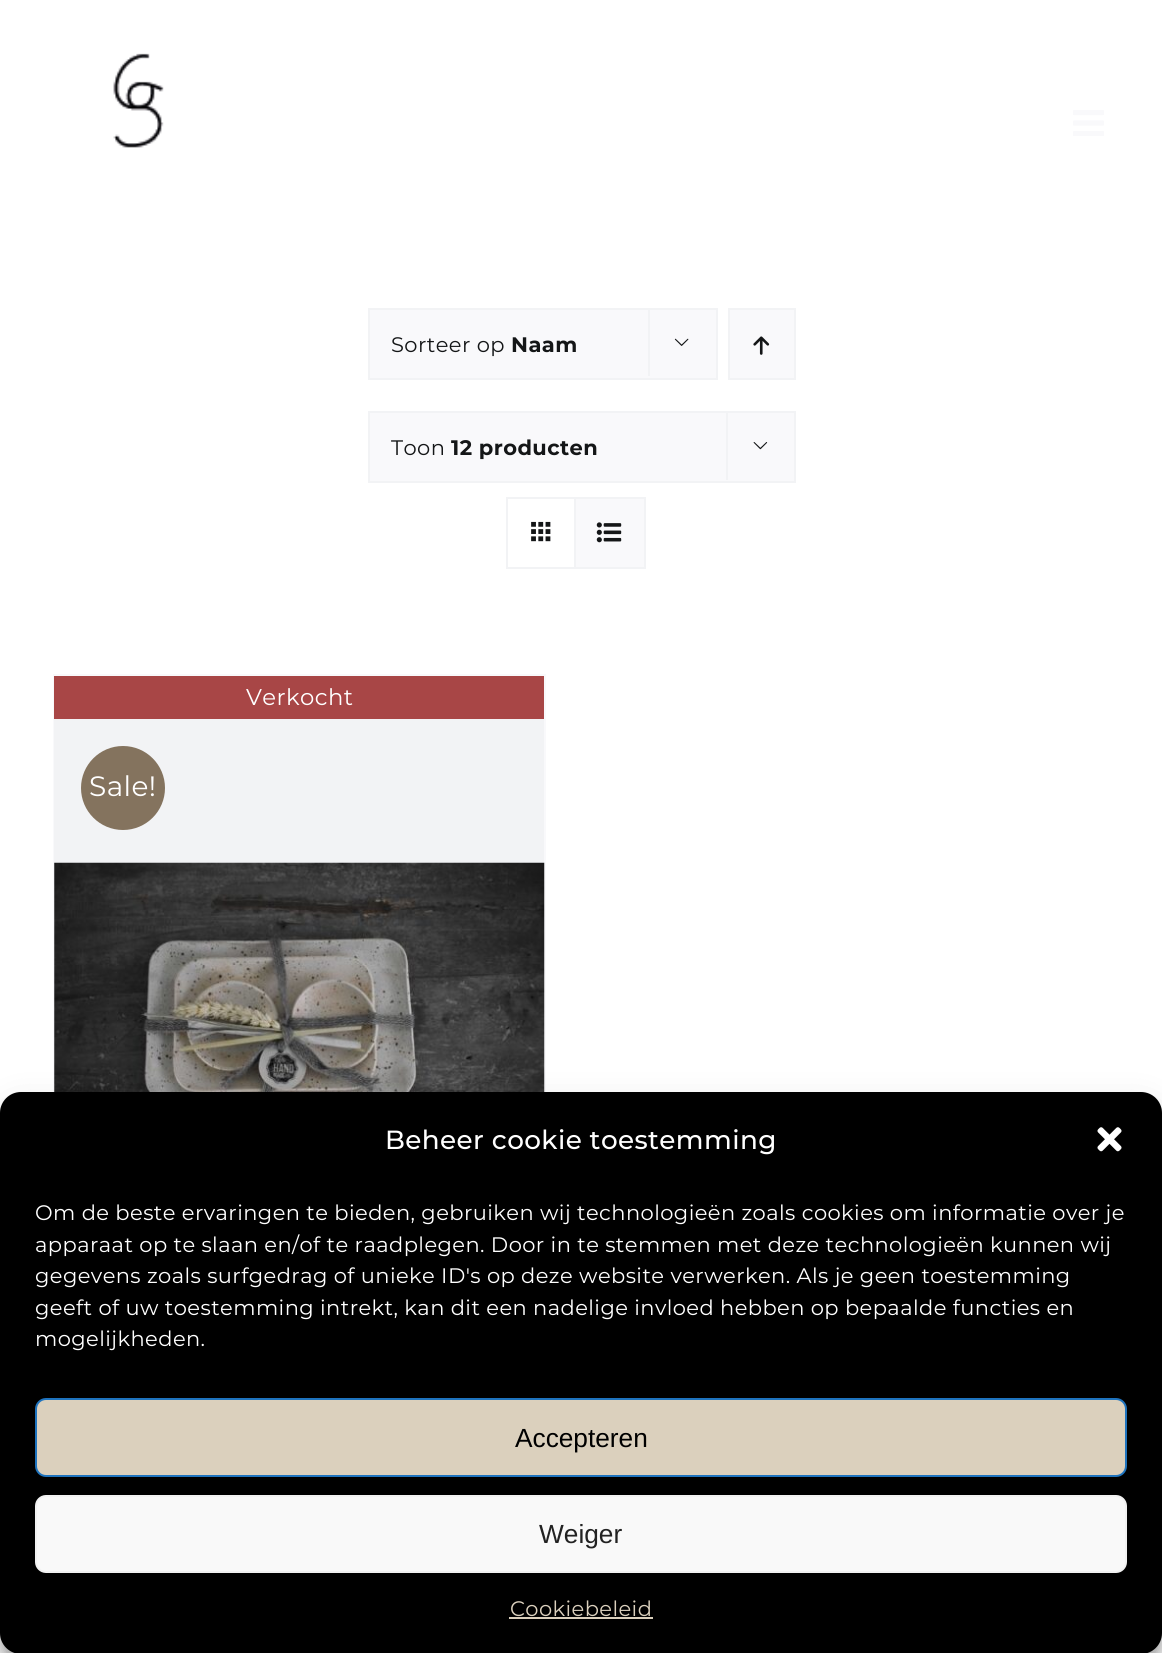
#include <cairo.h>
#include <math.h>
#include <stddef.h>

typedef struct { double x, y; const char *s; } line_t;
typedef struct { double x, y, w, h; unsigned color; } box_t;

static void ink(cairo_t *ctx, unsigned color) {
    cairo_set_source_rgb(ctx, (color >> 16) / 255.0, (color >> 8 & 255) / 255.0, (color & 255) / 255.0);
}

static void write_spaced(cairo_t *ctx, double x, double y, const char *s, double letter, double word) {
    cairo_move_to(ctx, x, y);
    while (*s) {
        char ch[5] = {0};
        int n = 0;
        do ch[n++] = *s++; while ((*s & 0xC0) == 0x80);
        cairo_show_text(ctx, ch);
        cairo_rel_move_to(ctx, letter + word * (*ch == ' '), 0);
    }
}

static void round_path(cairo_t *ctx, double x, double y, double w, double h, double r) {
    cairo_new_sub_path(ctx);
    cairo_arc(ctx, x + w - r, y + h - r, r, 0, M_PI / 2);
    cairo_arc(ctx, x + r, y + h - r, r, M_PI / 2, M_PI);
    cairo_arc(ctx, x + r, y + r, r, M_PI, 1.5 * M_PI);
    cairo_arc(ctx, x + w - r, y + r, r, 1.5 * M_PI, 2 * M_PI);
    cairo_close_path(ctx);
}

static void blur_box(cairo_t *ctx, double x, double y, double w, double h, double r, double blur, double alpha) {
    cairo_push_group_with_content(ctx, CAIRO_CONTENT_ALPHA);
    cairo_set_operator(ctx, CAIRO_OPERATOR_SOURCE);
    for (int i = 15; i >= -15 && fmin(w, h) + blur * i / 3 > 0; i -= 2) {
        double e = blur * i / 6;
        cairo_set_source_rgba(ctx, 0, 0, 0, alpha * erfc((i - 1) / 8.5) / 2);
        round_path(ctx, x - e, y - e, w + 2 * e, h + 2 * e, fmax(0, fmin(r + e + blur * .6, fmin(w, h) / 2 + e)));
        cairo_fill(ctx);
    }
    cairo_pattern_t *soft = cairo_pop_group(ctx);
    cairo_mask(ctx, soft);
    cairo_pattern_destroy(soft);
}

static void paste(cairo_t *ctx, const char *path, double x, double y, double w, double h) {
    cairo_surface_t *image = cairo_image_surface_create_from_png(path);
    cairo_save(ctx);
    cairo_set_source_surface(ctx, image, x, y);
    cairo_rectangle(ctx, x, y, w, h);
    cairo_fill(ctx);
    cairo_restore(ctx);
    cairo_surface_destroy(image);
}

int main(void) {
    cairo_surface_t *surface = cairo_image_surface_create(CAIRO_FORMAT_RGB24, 1162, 1653);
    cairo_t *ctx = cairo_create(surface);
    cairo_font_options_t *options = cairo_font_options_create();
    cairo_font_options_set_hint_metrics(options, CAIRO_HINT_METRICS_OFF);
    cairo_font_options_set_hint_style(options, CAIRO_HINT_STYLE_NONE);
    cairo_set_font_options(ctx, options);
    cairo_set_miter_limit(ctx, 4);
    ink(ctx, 0xFFFFFF);
    cairo_paint(ctx);
    paste(ctx, "media/1.png", 113, 53, 51, 95);
    paste(ctx, "media/2.png", 1073, 110, 31, 26);
    ink(ctx, 0xF9F9FB);
    cairo_rectangle(ctx, 369, 309, 348, 70);
    cairo_fill_preserve(ctx);
    ink(ctx, 0xF2F3F5);
    cairo_stroke(ctx);
    cairo_select_font_face(ctx, "Montserrat", CAIRO_FONT_SLANT_NORMAL, CAIRO_FONT_WEIGHT_NORMAL);
    cairo_set_font_size(ctx, 21);
    ink(ctx, 0x141617);
    write_spaced(ctx, 391, 352, "Sorteer op", 0.42, 0);
    cairo_select_font_face(ctx, "Montserrat", CAIRO_FONT_SLANT_NORMAL, CAIRO_FONT_WEIGHT_BOLD);
    write_spaced(ctx, 511, 352, "Naam", 0.42, 0);
    ink(ctx, 0xF2F3F5);
    cairo_rectangle(ctx, 648, 308, 2, 68);
    cairo_fill(ctx);
    paste(ctx, "media/3.png", 674, 338, 15, 8);
    ink(ctx, 0xF9F9FB);
    cairo_rectangle(ctx, 729, 309, 66, 70);
    cairo_fill_preserve(ctx);
    ink(ctx, 0xF2F3F5);
    cairo_stroke(ctx);
    paste(ctx, "media/4.png", 753, 336, 17, 19);
    ink(ctx, 0xF9F9FB);
    cairo_rectangle(ctx, 369, 412, 426, 70);
    cairo_fill_preserve(ctx);
    ink(ctx, 0xF2F3F5);
    cairo_stroke(ctx);
    cairo_select_font_face(ctx, "Montserrat", CAIRO_FONT_SLANT_NORMAL, CAIRO_FONT_WEIGHT_NORMAL);
    ink(ctx, 0x141617);
    write_spaced(ctx, 391, 455, "Toon", 0.42, 0);
    cairo_select_font_face(ctx, "Montserrat", CAIRO_FONT_SLANT_NORMAL, CAIRO_FONT_WEIGHT_BOLD);
    write_spaced(ctx, 451, 455, "12 producten", 0.42, 0);
    ink(ctx, 0xF2F3F5);
    cairo_rectangle(ctx, 726, 411, 2, 69);
    cairo_fill(ctx);
    paste(ctx, "media/5.png", 753, 442, 15, 8);
    cairo_rectangle(ctx, 507, 498, 138, 70);
    cairo_stroke(ctx);
    cairo_rectangle(ctx, 574, 499, 2, 68);
    cairo_fill(ctx);
    paste(ctx, "media/6.png", 531, 521, 20, 21);
    ink(ctx, 0xF9F9FB);
    cairo_rectangle(ctx, 576, 499, 68, 68);
    cairo_fill(ctx);
    paste(ctx, "media/7.png", 596, 522, 26, 21);
    {
        static const box_t items[] = {
            {53, 674, 493, 2, 0xF9F9FB},
            {544, 674, 2, 418, 0xF9F9FB},
            {53, 674, 2, 418, 0xF9F9FB},
            {54, 676, 490, 43, 0xA84646},
        };
        for (size_t i = 0; i < sizeof items / sizeof *items; i++) {
            ink(ctx, items[i].color);
            cairo_rectangle(ctx, items[i].x, items[i].y, items[i].w, items[i].h);
            cairo_fill(ctx);
        }
    }
    cairo_select_font_face(ctx, "Montserrat", CAIRO_FONT_SLANT_NORMAL, CAIRO_FONT_WEIGHT_NORMAL);
    cairo_set_font_size(ctx, 22.75);
    ink(ctx, 0xFFFFFF);
    write_spaced(ctx, 246, 705, "Verkocht", 0.42, 0);
    ink(ctx, 0xF2F3F5);
    cairo_rectangle(ctx, 54, 719, 490, 373);
    cairo_fill(ctx);
    ink(ctx, 0x84735E);
    cairo_arc(ctx, 123, 788, 42, 0, 2 * M_PI);
    cairo_fill(ctx);
    cairo_set_font_size(ctx, 28);
    ink(ctx, 0xFFFFFF);
    write_spaced(ctx, 89, 796, "Sale!", 0.42, 0);
    paste(ctx, "media/8.png", 54, 862, 491, 230);
    ink(ctx, 0x000000);
    blur_box(ctx, 0, 1103, 1162, 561, 21, 5, 0.23);
    blur_box(ctx, 0, 1110, 1162, 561, 21, 17.5, 0.19);
    ink(ctx, 0x000000);
    round_path(ctx, 0, 1092, 1162, 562, 21);
    cairo_fill(ctx);
    cairo_select_font_face(ctx, "Montserrat Medium", CAIRO_FONT_SLANT_NORMAL, CAIRO_FONT_WEIGHT_NORMAL);
    cairo_set_font_size(ctx, 26.25);
    ink(ctx, 0xFFFFFF);
    write_spaced(ctx, 385, 1149, "Beheer cookie toestemming", 0.42, 0);
    paste(ctx, "media/9.png", 1097, 1127, 25, 25);
    cairo_select_font_face(ctx, "Montserrat", CAIRO_FONT_SLANT_NORMAL, CAIRO_FONT_WEIGHT_NORMAL);
    cairo_set_font_size(ctx, 21);
    {
        static const line_t items[] = {
            {35, 1220, "Om de beste ervaringen te bieden, gebruiken wij technologieën zoals cookies om informatie over je"},
            {35, 1252, "apparaat op te slaan en/of te raadplegen. Door in te stemmen met deze technologieën kunnen wij"},
            {35, 1283, "gegevens zoals surfgedrag of unieke ID's op deze website verwerken. Als je geen toestemming"},
            {35, 1315, "geeft of uw toestemming intrekt, kan dit een nadelige invloed hebben op bepaalde functies en"},
            {35, 1346, "mogelijkheden."},
        };
        for (size_t i = 0; i < sizeof items / sizeof *items; i++) {
            write_spaced(ctx, items[i].x, items[i].y, items[i].s, 0.42, 0);
        }
    }
    ink(ctx, 0xDBD0BD);
    round_path(ctx, 36, 1399, 1090, 77, 10);
    cairo_fill_preserve(ctx);
    ink(ctx, 0x1E73BE);
    cairo_stroke(ctx);
    cairo_select_font_face(ctx, "Liberation Sans", CAIRO_FONT_SLANT_NORMAL, CAIRO_FONT_WEIGHT_NORMAL);
    cairo_set_font_size(ctx, 26.25);
    ink(ctx, 0x000000);
    cairo_move_to(ctx, 515, 1447);
    cairo_show_text(ctx, "Accepteren");
    ink(ctx, 0xF9F9F9);
    round_path(ctx, 36, 1496, 1090, 76, 10);
    cairo_fill_preserve(ctx);
    ink(ctx, 0xF2F2F2);
    cairo_stroke(ctx);
    ink(ctx, 0x222222);
    cairo_move_to(ctx, 539, 1543);
    cairo_show_text(ctx, "Weiger");
    cairo_select_font_face(ctx, "Montserrat", CAIRO_FONT_SLANT_NORMAL, CAIRO_FONT_WEIGHT_NORMAL);
    cairo_set_font_size(ctx, 21);
    ink(ctx, 0xDBD0BD);
    write_spaced(ctx, 510, 1616, "Cookiebeleid", 0.42, 0);
    cairo_rectangle(ctx, 509, 1617, 144, 2);
    cairo_fill(ctx);
    cairo_surface_write_to_png(surface, "image.png");
    cairo_font_options_destroy(options);
    cairo_destroy(ctx);
    cairo_surface_destroy(surface);
    return 0;
}
